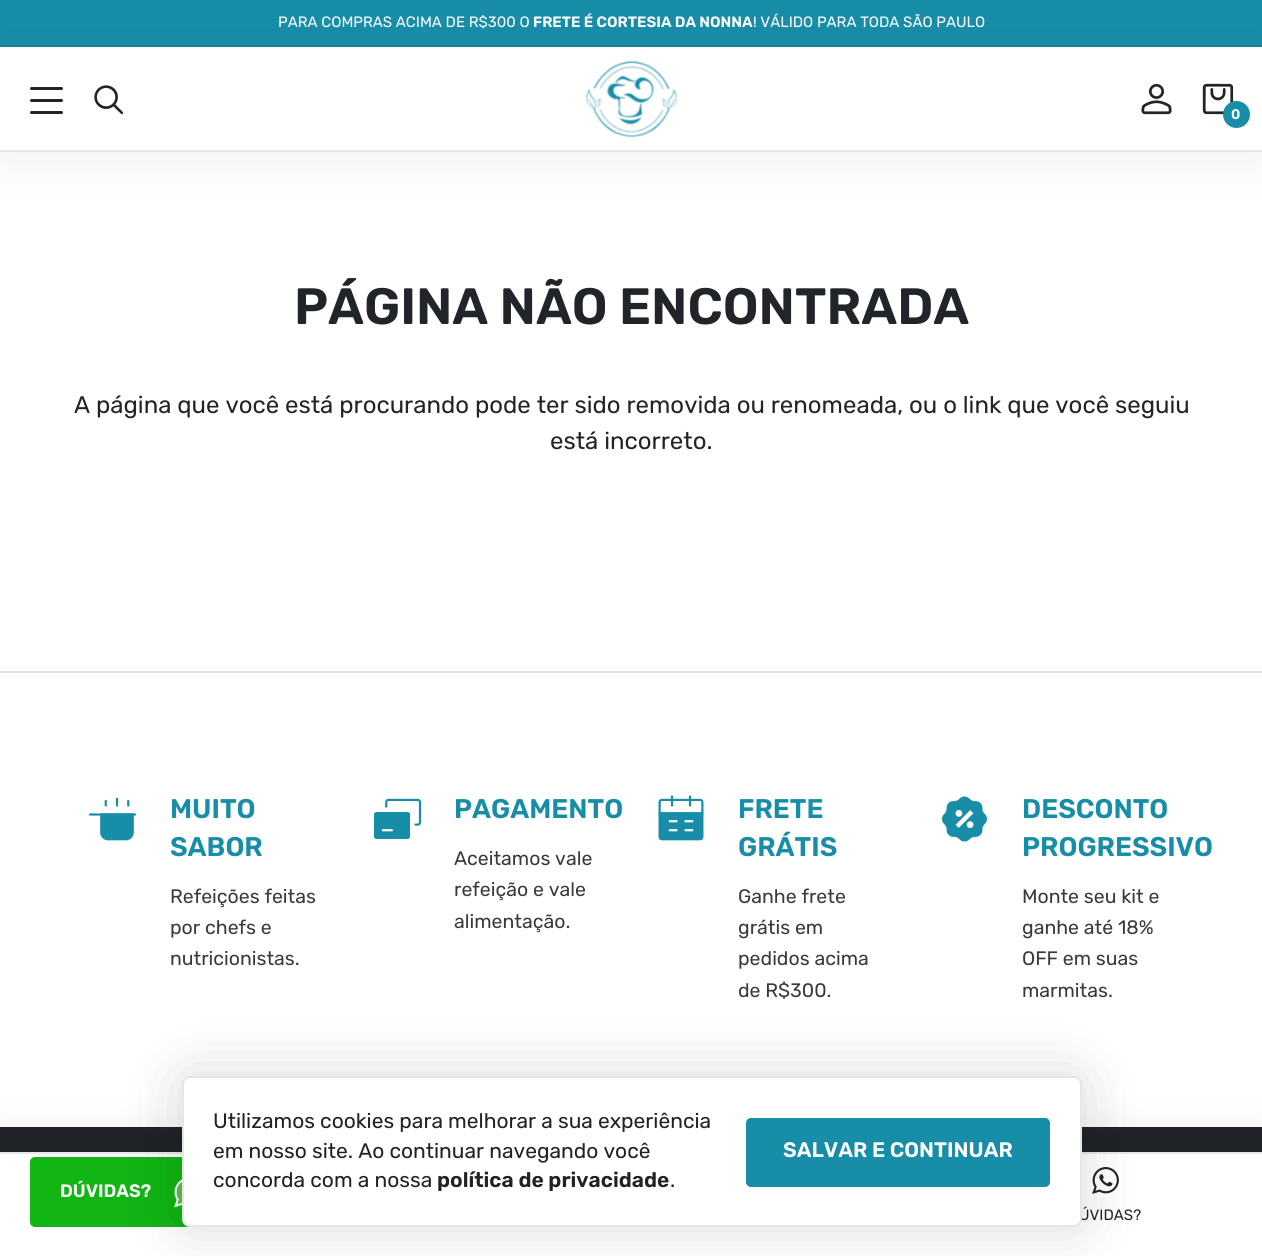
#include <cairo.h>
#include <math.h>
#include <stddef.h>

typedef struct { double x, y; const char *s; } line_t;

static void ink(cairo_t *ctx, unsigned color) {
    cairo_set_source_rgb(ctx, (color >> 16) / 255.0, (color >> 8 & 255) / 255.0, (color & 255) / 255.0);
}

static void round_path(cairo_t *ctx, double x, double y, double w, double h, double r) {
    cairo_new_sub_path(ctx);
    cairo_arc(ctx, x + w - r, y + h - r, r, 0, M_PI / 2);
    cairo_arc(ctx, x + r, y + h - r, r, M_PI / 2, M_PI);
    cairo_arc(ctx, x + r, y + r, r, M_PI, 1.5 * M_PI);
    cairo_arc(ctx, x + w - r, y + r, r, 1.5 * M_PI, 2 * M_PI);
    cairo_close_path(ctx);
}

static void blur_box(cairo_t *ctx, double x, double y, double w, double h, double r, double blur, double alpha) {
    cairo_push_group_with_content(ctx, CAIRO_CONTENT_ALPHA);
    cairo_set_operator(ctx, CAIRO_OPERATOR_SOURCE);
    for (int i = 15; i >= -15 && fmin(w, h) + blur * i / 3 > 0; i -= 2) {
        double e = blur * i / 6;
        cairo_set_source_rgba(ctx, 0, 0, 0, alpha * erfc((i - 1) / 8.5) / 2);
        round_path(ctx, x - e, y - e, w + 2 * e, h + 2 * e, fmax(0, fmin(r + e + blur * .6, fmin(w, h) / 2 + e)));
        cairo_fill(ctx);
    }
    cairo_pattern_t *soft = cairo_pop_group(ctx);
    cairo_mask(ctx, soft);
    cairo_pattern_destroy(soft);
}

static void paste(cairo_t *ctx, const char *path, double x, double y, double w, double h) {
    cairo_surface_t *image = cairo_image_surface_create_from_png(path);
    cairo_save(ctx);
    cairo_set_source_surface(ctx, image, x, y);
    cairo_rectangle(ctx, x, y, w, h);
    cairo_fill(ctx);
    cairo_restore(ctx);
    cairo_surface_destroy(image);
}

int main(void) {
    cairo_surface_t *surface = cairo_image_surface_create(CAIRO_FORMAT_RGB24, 1262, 1256);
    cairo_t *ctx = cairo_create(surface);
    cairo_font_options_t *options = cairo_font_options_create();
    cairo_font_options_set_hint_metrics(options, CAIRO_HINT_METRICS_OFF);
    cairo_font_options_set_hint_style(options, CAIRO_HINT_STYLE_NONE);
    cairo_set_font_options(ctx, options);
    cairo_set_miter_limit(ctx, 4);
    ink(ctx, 0xFFFFFF);
    cairo_paint(ctx);
    ink(ctx, 0x188DA8);
    cairo_rectangle(ctx, 0, 0, 1262, 45);
    cairo_fill(ctx);
    ink(ctx, 0x167F97);
    cairo_rectangle(ctx, 0, 45, 1262, 2);
    cairo_fill(ctx);
    cairo_select_font_face(ctx, "Rubik", CAIRO_FONT_SLANT_NORMAL, CAIRO_FONT_WEIGHT_NORMAL);
    cairo_set_font_size(ctx, 15);
    ink(ctx, 0xFFFFFF);
    cairo_move_to(ctx, 278, 27);
    cairo_show_text(ctx, "PARA COMPRAS ACIMA DE R$300 O");
    cairo_select_font_face(ctx, "Rubik SemiBold", CAIRO_FONT_SLANT_NORMAL, CAIRO_FONT_WEIGHT_NORMAL);
    cairo_move_to(ctx, 533, 27);
    cairo_show_text(ctx, "FRETE É CORTESIA DA NONNA");
    cairo_select_font_face(ctx, "Rubik", CAIRO_FONT_SLANT_NORMAL, CAIRO_FONT_WEIGHT_NORMAL);
    cairo_move_to(ctx, 753, 27);
    cairo_show_text(ctx, "! VÁLIDO PARA TODA SÃO PAULO");
    ink(ctx, 0x000000);
    blur_box(ctx, 0, 62, 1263, 105, 0, 22.5, 0.05);
    ink(ctx, 0xFFFFFF);
    cairo_rectangle(ctx, 0, 47, 1262, 103);
    cairo_fill(ctx);
    ink(ctx, 0xE6E6E6);
    cairo_rectangle(ctx, 0, 150, 1262, 2);
    cairo_fill(ctx);
    ink(ctx, 0x212529);
    round_path(ctx, 30, 87, 33, 3, 1.5);
    cairo_fill(ctx);
    round_path(ctx, 30, 99, 33, 3, 1.5);
    cairo_fill(ctx);
    round_path(ctx, 30, 111, 33, 3, 1.5);
    cairo_fill(ctx);
    paste(ctx, "media/1.png", 94, 85, 30, 30);
    paste(ctx, "media/2.png", 586, 61, 91, 76);
    paste(ctx, "media/3.png", 1141, 83, 31, 32);
    paste(ctx, "media/4.png", 1202, 83, 32, 32);
    ink(ctx, 0x188DA8);
    cairo_arc(ctx, 1236.5, 114.5, 13.5, 0, 2 * M_PI);
    cairo_fill(ctx);
    cairo_select_font_face(ctx, "Rubik SemiBold", CAIRO_FONT_SLANT_NORMAL, CAIRO_FONT_WEIGHT_NORMAL);
    cairo_set_font_size(ctx, 14);
    ink(ctx, 0xFFFFFF);
    cairo_move_to(ctx, 1231, 119);
    cairo_show_text(ctx, "0");
    cairo_set_font_size(ctx, 51);
    ink(ctx, 0x212529);
    cairo_move_to(ctx, 294, 324);
    cairo_show_text(ctx, "PÁGINA NÃO ENCONTRADA");
    cairo_select_font_face(ctx, "Rubik", CAIRO_FONT_SLANT_NORMAL, CAIRO_FONT_WEIGHT_NORMAL);
    cairo_set_font_size(ctx, 24);
    cairo_move_to(ctx, 74, 413);
    cairo_show_text(ctx, "A página que você está procurando pode ter sido removida ou renomeada, ou o link que você seguiu");
    cairo_move_to(ctx, 550, 449);
    cairo_show_text(ctx, "está incorreto.");
    ink(ctx, 0xE2E2E2);
    cairo_rectangle(ctx, 0, 671, 1262, 2);
    cairo_fill(ctx);
    paste(ctx, "media/5.png", 88, 797, 49, 44);
    cairo_select_font_face(ctx, "Rubik SemiBold", CAIRO_FONT_SLANT_NORMAL, CAIRO_FONT_WEIGHT_NORMAL);
    cairo_set_font_size(ctx, 27);
    ink(ctx, 0x188DA8);
    cairo_move_to(ctx, 170, 818);
    cairo_show_text(ctx, "MUITO");
    cairo_move_to(ctx, 170, 856);
    cairo_show_text(ctx, "SABOR");
    cairo_select_font_face(ctx, "Rubik", CAIRO_FONT_SLANT_NORMAL, CAIRO_FONT_WEIGHT_NORMAL);
    cairo_set_font_size(ctx, 19.5);
    ink(ctx, 0x373B3E);
    {
        static const line_t items[] = {
            {170, 903, "Refeições feitas"},
            {170, 934, "por chefs e"},
            {170, 965, "nutricionistas."},
        };
        for (size_t i = 0; i < sizeof items / sizeof *items; i++) {
            cairo_move_to(ctx, items[i].x, items[i].y);
            cairo_show_text(ctx, items[i].s);
        }
    }
    paste(ctx, "media/6.png", 373, 798, 49, 41);
    cairo_select_font_face(ctx, "Rubik SemiBold", CAIRO_FONT_SLANT_NORMAL, CAIRO_FONT_WEIGHT_NORMAL);
    cairo_set_font_size(ctx, 27);
    ink(ctx, 0x188DA8);
    cairo_move_to(ctx, 454, 818);
    cairo_show_text(ctx, "PAGAMENTO");
    cairo_select_font_face(ctx, "Rubik", CAIRO_FONT_SLANT_NORMAL, CAIRO_FONT_WEIGHT_NORMAL);
    cairo_set_font_size(ctx, 19.5);
    ink(ctx, 0x373B3E);
    {
        static const line_t items[] = {
            {454, 865, "Aceitamos vale"},
            {454, 896, "refeição e vale"},
            {454, 928, "alimentação."},
        };
        for (size_t i = 0; i < sizeof items / sizeof *items; i++) {
            cairo_move_to(ctx, items[i].x, items[i].y);
            cairo_show_text(ctx, items[i].s);
        }
    }
    paste(ctx, "media/7.png", 658, 795, 46, 46);
    cairo_select_font_face(ctx, "Rubik SemiBold", CAIRO_FONT_SLANT_NORMAL, CAIRO_FONT_WEIGHT_NORMAL);
    cairo_set_font_size(ctx, 27);
    ink(ctx, 0x188DA8);
    cairo_move_to(ctx, 738, 818);
    cairo_show_text(ctx, "FRETE");
    cairo_move_to(ctx, 738, 856);
    cairo_show_text(ctx, "GRÁTIS");
    cairo_select_font_face(ctx, "Rubik", CAIRO_FONT_SLANT_NORMAL, CAIRO_FONT_WEIGHT_NORMAL);
    cairo_set_font_size(ctx, 19.5);
    ink(ctx, 0x373B3E);
    {
        static const line_t items[] = {
            {738, 903, "Ganhe frete"},
            {738, 934, "grátis em"},
            {738, 965, "pedidos acima"},
            {738, 997, "de R$300."},
        };
        for (size_t i = 0; i < sizeof items / sizeof *items; i++) {
            cairo_move_to(ctx, items[i].x, items[i].y);
            cairo_show_text(ctx, items[i].s);
        }
    }
    paste(ctx, "media/8.png", 942, 796, 45, 46);
    cairo_select_font_face(ctx, "Rubik SemiBold", CAIRO_FONT_SLANT_NORMAL, CAIRO_FONT_WEIGHT_NORMAL);
    cairo_set_font_size(ctx, 27);
    ink(ctx, 0x188DA8);
    cairo_move_to(ctx, 1022, 818);
    cairo_show_text(ctx, "DESCONTO");
    cairo_move_to(ctx, 1022, 856);
    cairo_show_text(ctx, "PROGRESSIVO");
    cairo_select_font_face(ctx, "Rubik", CAIRO_FONT_SLANT_NORMAL, CAIRO_FONT_WEIGHT_NORMAL);
    cairo_set_font_size(ctx, 19.5);
    ink(ctx, 0x373B3E);
    {
        static const line_t items[] = {
            {1022, 903, "Monte seu kit e"},
            {1022, 934, "ganhe até 18%"},
            {1022, 965, "OFF em suas"},
            {1022, 997, "marmitas."},
        };
        for (size_t i = 0; i < sizeof items / sizeof *items; i++) {
            cairo_move_to(ctx, items[i].x, items[i].y);
            cairo_show_text(ctx, items[i].s);
        }
    }
    ink(ctx, 0x212529);
    cairo_rectangle(ctx, 0, 1127, 1262, 25);
    cairo_fill(ctx);
    ink(ctx, 0x000000);
    blur_box(ctx, 0, 1137, 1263, 105, 0, 22.5, 0.1);
    ink(ctx, 0xFFFFFF);
    cairo_rectangle(ctx, 0, 1154, 1262, 102);
    cairo_fill(ctx);
    ink(ctx, 0x11B514);
    round_path(ctx, 30, 1157, 197, 70, 5);
    cairo_fill(ctx);
    paste(ctx, "media/9.png", 174, 1179, 8, 29);
    ink(ctx, 0xE6E6E6);
    cairo_rectangle(ctx, 0, 1152, 1262, 2);
    cairo_fill(ctx);
    paste(ctx, "media/10.png", 1092, 1167, 27, 27);
    ink(ctx, 0x000000);
    blur_box(ctx, 182, 1076, 900, 151, 8, 30, 0.15);
    cairo_set_font_size(ctx, 15);
    ink(ctx, 0x212529);
    cairo_move_to(ctx, 1079, 1220);
    cairo_show_text(ctx, "ÚVIDAS?");
    ink(ctx, 0xFFFFFF);
    round_path(ctx, 182, 1076, 900, 151, 8);
    cairo_fill(ctx);
    round_path(ctx, 183, 1077, 898, 149, 7);
    cairo_set_source_rgba(ctx, 0, 0, 0, 0.1);
    cairo_stroke(ctx);
    cairo_set_font_size(ctx, 21);
    ink(ctx, 0x222222);
    {
        static const line_t items[] = {
            {213, 1128, "Utilizamos cookies para melhorar a sua experiência"},
            {213, 1158, "em nosso site. Ao continuar navegando você"},
            {213, 1187, "concorda com a nossa"},
        };
        for (size_t i = 0; i < sizeof items / sizeof *items; i++) {
            cairo_move_to(ctx, items[i].x, items[i].y);
            cairo_show_text(ctx, items[i].s);
        }
    }
    cairo_select_font_face(ctx, "Rubik SemiBold", CAIRO_FONT_SLANT_NORMAL, CAIRO_FONT_WEIGHT_NORMAL);
    cairo_move_to(ctx, 437, 1187);
    cairo_show_text(ctx, "política de privacidade");
    cairo_select_font_face(ctx, "Rubik", CAIRO_FONT_SLANT_NORMAL, CAIRO_FONT_WEIGHT_NORMAL);
    cairo_move_to(ctx, 670, 1187);
    cairo_show_text(ctx, ".");
    ink(ctx, 0x188DA8);
    round_path(ctx, 746, 1118, 304, 69, 5);
    cairo_fill(ctx);
    cairo_select_font_face(ctx, "Rubik SemiBold", CAIRO_FONT_SLANT_NORMAL, CAIRO_FONT_WEIGHT_NORMAL);
    ink(ctx, 0xFFFFFF);
    cairo_move_to(ctx, 783, 1157);
    cairo_show_text(ctx, "SALVAR E CONTINUAR");
    cairo_set_font_size(ctx, 18);
    cairo_move_to(ctx, 60, 1197);
    cairo_show_text(ctx, "DÚVIDAS?");
    cairo_surface_write_to_png(surface, "image.png");
    cairo_font_options_destroy(options);
    cairo_destroy(ctx);
    cairo_surface_destroy(surface);
    return 0;
}
